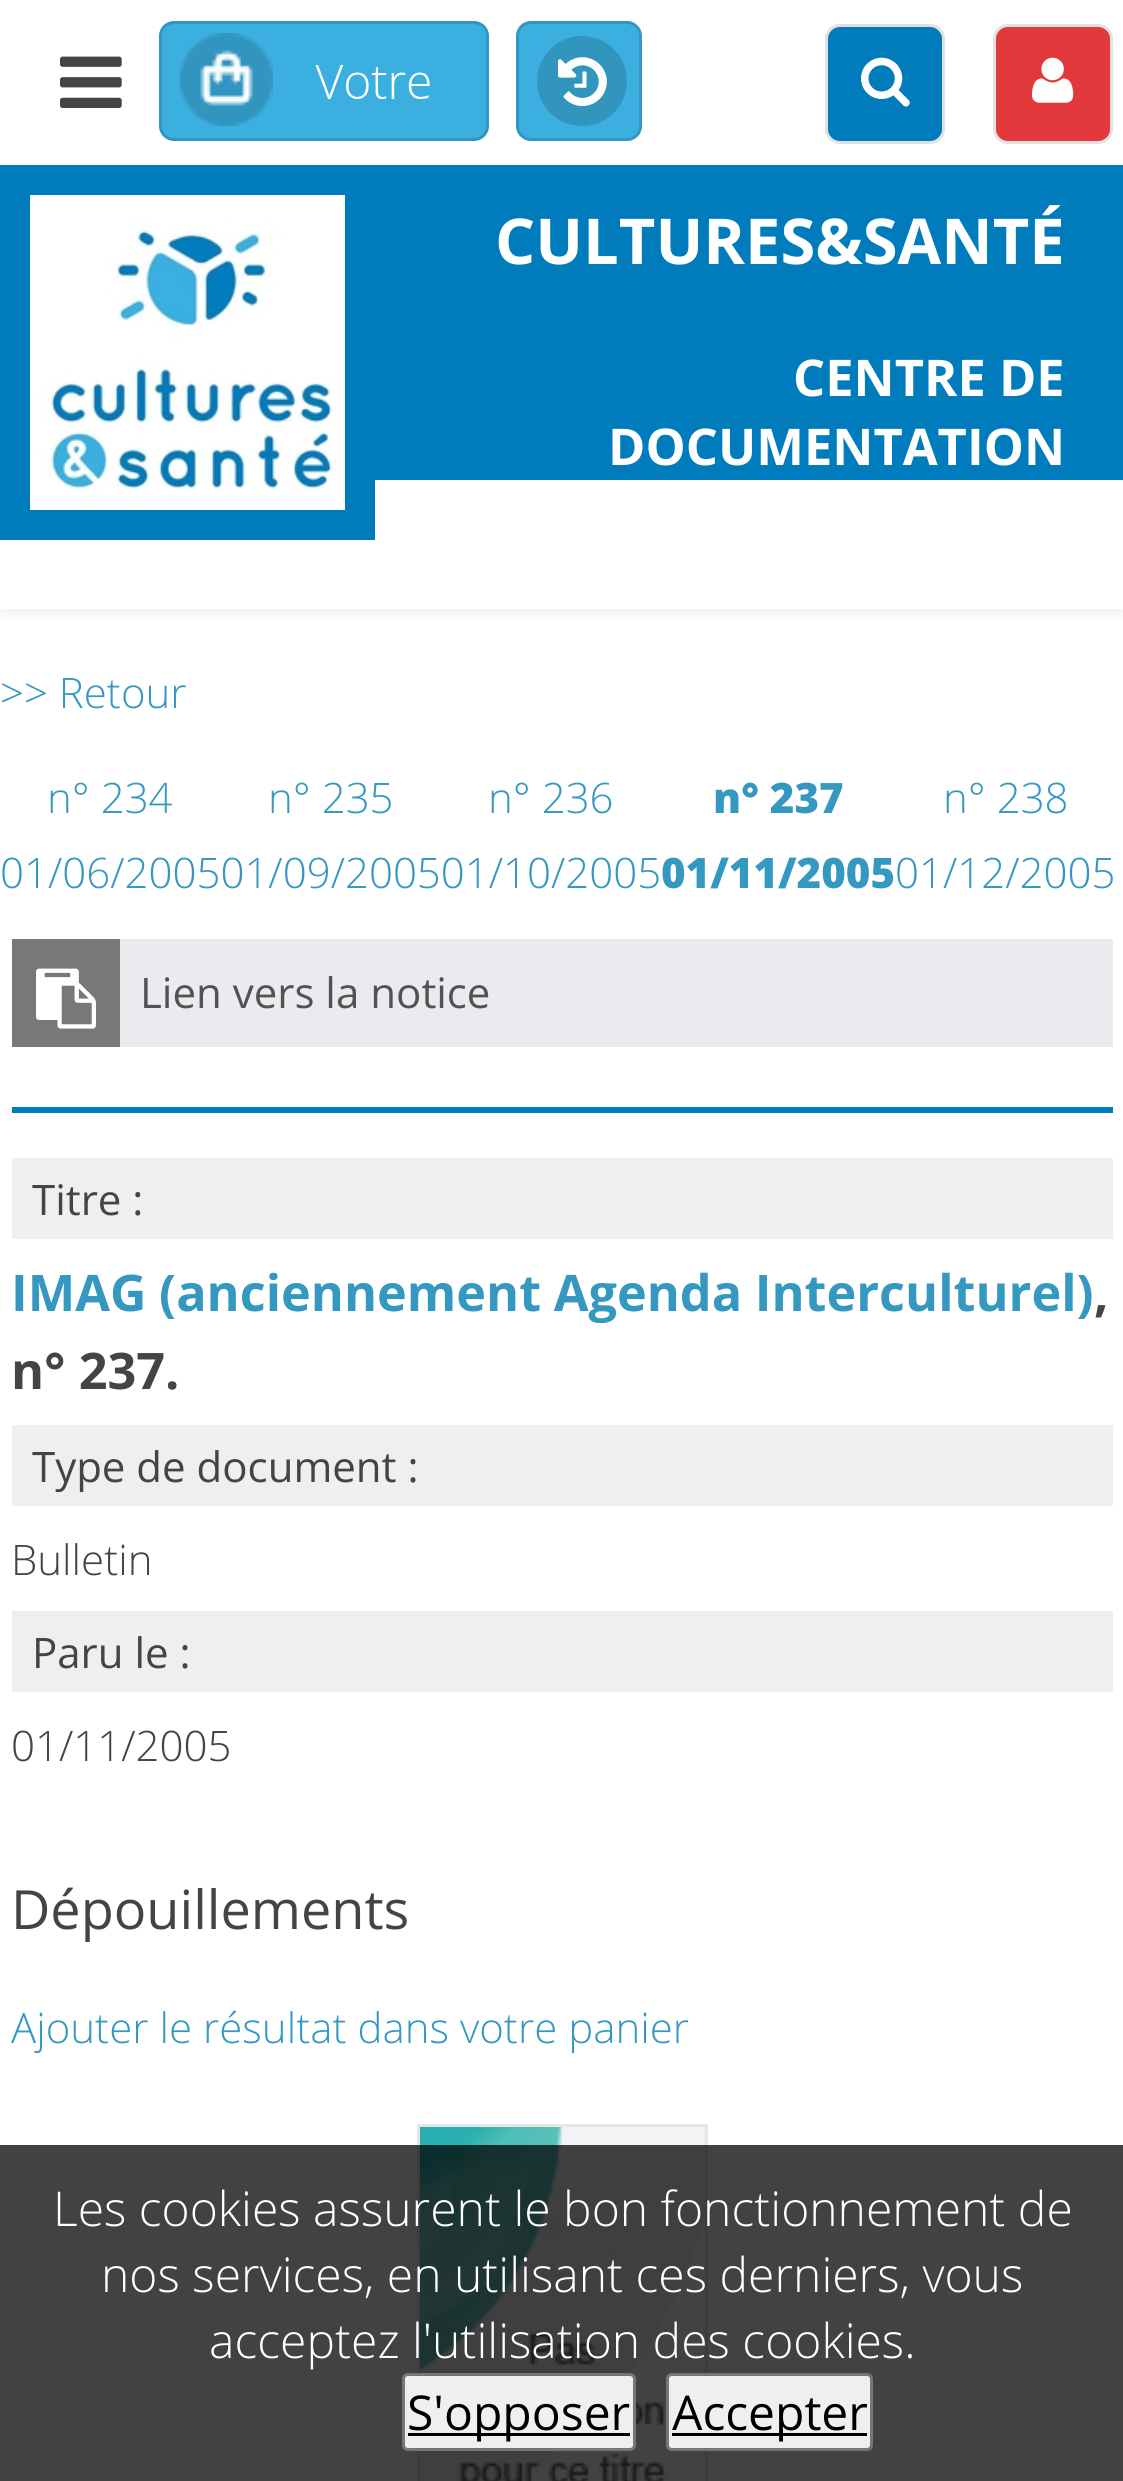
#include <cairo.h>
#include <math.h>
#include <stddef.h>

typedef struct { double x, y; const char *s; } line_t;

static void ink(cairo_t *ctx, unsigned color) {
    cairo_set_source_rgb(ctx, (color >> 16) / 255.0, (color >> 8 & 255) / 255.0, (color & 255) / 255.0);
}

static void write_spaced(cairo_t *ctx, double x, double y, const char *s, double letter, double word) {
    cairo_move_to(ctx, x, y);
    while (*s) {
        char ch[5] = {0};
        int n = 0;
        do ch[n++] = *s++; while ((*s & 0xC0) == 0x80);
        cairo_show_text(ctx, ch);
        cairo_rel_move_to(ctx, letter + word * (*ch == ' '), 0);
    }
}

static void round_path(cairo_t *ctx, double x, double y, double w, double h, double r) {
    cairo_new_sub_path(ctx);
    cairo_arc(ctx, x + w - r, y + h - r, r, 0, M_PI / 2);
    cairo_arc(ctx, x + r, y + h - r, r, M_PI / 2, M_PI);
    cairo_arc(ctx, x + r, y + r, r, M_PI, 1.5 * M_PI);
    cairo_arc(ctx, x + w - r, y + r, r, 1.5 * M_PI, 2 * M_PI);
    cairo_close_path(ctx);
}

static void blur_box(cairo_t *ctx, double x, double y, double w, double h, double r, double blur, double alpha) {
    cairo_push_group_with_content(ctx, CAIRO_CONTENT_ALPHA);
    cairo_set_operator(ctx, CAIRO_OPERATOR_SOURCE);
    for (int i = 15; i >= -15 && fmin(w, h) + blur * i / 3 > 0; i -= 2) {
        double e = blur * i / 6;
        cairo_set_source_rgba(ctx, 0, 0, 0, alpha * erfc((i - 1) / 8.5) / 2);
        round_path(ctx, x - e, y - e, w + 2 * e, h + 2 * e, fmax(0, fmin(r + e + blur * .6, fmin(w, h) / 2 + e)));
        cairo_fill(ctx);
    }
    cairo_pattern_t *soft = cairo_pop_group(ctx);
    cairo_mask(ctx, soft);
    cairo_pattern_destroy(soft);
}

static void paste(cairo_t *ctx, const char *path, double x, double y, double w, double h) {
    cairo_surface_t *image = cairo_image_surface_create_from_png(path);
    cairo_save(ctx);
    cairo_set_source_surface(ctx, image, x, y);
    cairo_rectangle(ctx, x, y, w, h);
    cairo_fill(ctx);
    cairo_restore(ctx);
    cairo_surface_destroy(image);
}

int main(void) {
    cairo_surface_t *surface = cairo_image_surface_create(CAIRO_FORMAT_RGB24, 1123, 2481);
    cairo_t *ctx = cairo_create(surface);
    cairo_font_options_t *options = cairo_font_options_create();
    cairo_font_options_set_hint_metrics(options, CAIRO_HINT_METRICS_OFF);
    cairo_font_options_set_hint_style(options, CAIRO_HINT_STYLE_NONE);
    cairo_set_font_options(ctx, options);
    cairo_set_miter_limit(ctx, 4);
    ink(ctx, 0xFFFFFF);
    cairo_paint(ctx);
    cairo_save(ctx);
    cairo_rectangle(ctx, 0, 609, 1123, 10);
    cairo_clip(ctx);
    ink(ctx, 0x000000);
    blur_box(ctx, 0, 6, 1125, 609, 0, 9, 0.06);
    cairo_restore(ctx);
    ink(ctx, 0x3BAFE0);
    round_path(ctx, 159, 21, 330, 120, 15);
    cairo_fill(ctx);
    round_path(ctx, 160.5, 22.5, 327, 117, 13.5);
    cairo_set_source_rgba(ctx, 0, 0, 0, 0.14);
    cairo_set_line_width(ctx, 3);
    cairo_stroke(ctx);
    paste(ctx, "media/1.png", 180, 33, 250, 93);
    ink(ctx, 0x3BAFE0);
    round_path(ctx, 516, 21, 126, 120, 15);
    cairo_fill(ctx);
    round_path(ctx, 517.5, 22.5, 123, 117, 13.5);
    cairo_set_source_rgba(ctx, 0, 0, 0, 0.14);
    cairo_stroke(ctx);
    ink(ctx, 0x3295BE);
    cairo_arc(ctx, 582, 81, 45, 0, 2 * M_PI);
    cairo_fill(ctx);
    paste(ctx, "media/2.png", 558, 57, 49, 50);
    paste(ctx, "media/3.png", 60, 56, 62, 52);
    ink(ctx, 0x007CBC);
    round_path(ctx, 826.5, 25.5, 117, 117, 13.5);
    cairo_fill_preserve(ctx);
    ink(ctx, 0xE1E1E1);
    cairo_stroke(ctx);
    paste(ctx, "media/4.png", 861, 57, 49, 50);
    ink(ctx, 0xE1383B);
    round_path(ctx, 994.5, 25.5, 117, 117, 13.5);
    cairo_fill_preserve(ctx);
    ink(ctx, 0xE1E1E1);
    cairo_stroke(ctx);
    paste(ctx, "media/5.png", 1032, 57, 42, 46);
    ink(ctx, 0x007CBC);
    cairo_rectangle(ctx, 0, 165, 375, 375);
    cairo_fill(ctx);
    paste(ctx, "media/6.png", 30, 195, 315, 315);
    cairo_rectangle(ctx, 375, 165, 748, 315);
    cairo_fill(ctx);
    cairo_select_font_face(ctx, "Open Sans", CAIRO_FONT_SLANT_NORMAL, CAIRO_FONT_WEIGHT_BOLD);
    cairo_set_font_size(ctx, 63.25);
    ink(ctx, 0xFFFFFF);
    cairo_move_to(ctx, 495, 264);
    cairo_show_text(ctx, "CULTURES&SANTÉ");
    cairo_set_font_size(ctx, 50.6);
    cairo_move_to(ctx, 793, 396);
    cairo_show_text(ctx, "CENTRE DE");
    cairo_move_to(ctx, 608, 465);
    cairo_show_text(ctx, "DOCUMENTATION");
    cairo_select_font_face(ctx, "Open Sans Light", CAIRO_FONT_SLANT_NORMAL, CAIRO_FONT_WEIGHT_NORMAL);
    cairo_set_font_size(ctx, 42);
    ink(ctx, 0x3598C1);
    {
        static const line_t items[] = {
            {0, 708, ">> Retour"},
            {47, 813, "n° 234"},
            {0, 888, "01/06/200501/09/200501/10/2005"},
            {268, 813, "n° 235"},
            {488, 813, "n° 236"},
        };
        for (size_t i = 0; i < sizeof items / sizeof *items; i++) {
            cairo_move_to(ctx, items[i].x, items[i].y);
            cairo_show_text(ctx, items[i].s);
        }
    }
    cairo_select_font_face(ctx, "Open Sans ExtraBold", CAIRO_FONT_SLANT_NORMAL, CAIRO_FONT_WEIGHT_NORMAL);
    cairo_move_to(ctx, 713, 813);
    cairo_show_text(ctx, "n° 237");
    cairo_move_to(ctx, 661, 888);
    cairo_show_text(ctx, "01/11/2005");
    cairo_select_font_face(ctx, "Open Sans Light", CAIRO_FONT_SLANT_NORMAL, CAIRO_FONT_WEIGHT_NORMAL);
    cairo_move_to(ctx, 943, 813);
    cairo_show_text(ctx, "n° 238");
    cairo_move_to(ctx, 895, 888);
    cairo_show_text(ctx, "01/12/2005");
    ink(ctx, 0x787878);
    cairo_rectangle(ctx, 12, 939, 108, 108);
    cairo_fill(ctx);
    paste(ctx, "media/7.png", 36, 968, 60, 61);
    ink(ctx, 0xE9EBEE);
    cairo_rectangle(ctx, 120, 939, 993, 108);
    cairo_fill(ctx);
    cairo_select_font_face(ctx, "Open Sans", CAIRO_FONT_SLANT_NORMAL, CAIRO_FONT_WEIGHT_NORMAL);
    ink(ctx, 0x525252);
    cairo_move_to(ctx, 140, 1008);
    cairo_show_text(ctx, "Lien vers la notice");
    ink(ctx, 0x007CBC);
    cairo_rectangle(ctx, 12, 1107, 1101, 6);
    cairo_fill(ctx);
    ink(ctx, 0xEFEFEF);
    cairo_rectangle(ctx, 12, 1158, 1101, 81);
    cairo_fill(ctx);
    cairo_select_font_face(ctx, "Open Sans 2", CAIRO_FONT_SLANT_NORMAL, CAIRO_FONT_WEIGHT_NORMAL);
    ink(ctx, 0x444444);
    cairo_move_to(ctx, 32, 1215);
    cairo_show_text(ctx, "Titre :");
    cairo_select_font_face(ctx, "Open Sans", CAIRO_FONT_SLANT_NORMAL, CAIRO_FONT_WEIGHT_BOLD);
    cairo_set_font_size(ctx, 50.4);
    ink(ctx, 0x3598C1);
    write_spaced(ctx, 11, 1311, "IMAG (anciennement Agenda Interculturel)", 0, -0.5);
    ink(ctx, 0x444444);
    cairo_move_to(ctx, 1094, 1311);
    cairo_show_text(ctx, ",");
    cairo_move_to(ctx, 11, 1389);
    cairo_show_text(ctx, "n° 237.");
    ink(ctx, 0xEFEFEF);
    cairo_rectangle(ctx, 12, 1425, 1101, 81);
    cairo_fill(ctx);
    cairo_select_font_face(ctx, "Open Sans 2", CAIRO_FONT_SLANT_NORMAL, CAIRO_FONT_WEIGHT_NORMAL);
    cairo_set_font_size(ctx, 42);
    ink(ctx, 0x444444);
    cairo_move_to(ctx, 32, 1482);
    cairo_show_text(ctx, "Type de document :");
    cairo_select_font_face(ctx, "Open Sans Light", CAIRO_FONT_SLANT_NORMAL, CAIRO_FONT_WEIGHT_NORMAL);
    cairo_move_to(ctx, 11, 1575);
    cairo_show_text(ctx, "Bulletin");
    ink(ctx, 0xEFEFEF);
    cairo_rectangle(ctx, 12, 1611, 1101, 81);
    cairo_fill(ctx);
    cairo_select_font_face(ctx, "Open Sans 2", CAIRO_FONT_SLANT_NORMAL, CAIRO_FONT_WEIGHT_NORMAL);
    ink(ctx, 0x444444);
    cairo_move_to(ctx, 32, 1668);
    cairo_show_text(ctx, "Paru le :");
    cairo_select_font_face(ctx, "Open Sans Light", CAIRO_FONT_SLANT_NORMAL, CAIRO_FONT_WEIGHT_NORMAL);
    cairo_move_to(ctx, 11, 1761);
    cairo_show_text(ctx, "01/11/2005");
    cairo_select_font_face(ctx, "Open Sans", CAIRO_FONT_SLANT_NORMAL, CAIRO_FONT_WEIGHT_NORMAL);
    cairo_set_font_size(ctx, 54);
    cairo_move_to(ctx, 11, 1929);
    cairo_show_text(ctx, "Dépouillements");
    cairo_select_font_face(ctx, "Open Sans Light", CAIRO_FONT_SLANT_NORMAL, CAIRO_FONT_WEIGHT_NORMAL);
    cairo_set_font_size(ctx, 42);
    ink(ctx, 0x3598C1);
    cairo_move_to(ctx, 11, 2043);
    cairo_show_text(ctx, "Ajouter le résultat dans votre panier");
    cairo_rectangle(ctx, 418.5, 2125.5, 288, 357);
    ink(ctx, 0xE6E6E6);
    cairo_stroke(ctx);
    paste(ctx, "media/8.png", 420, 2127, 285, 354);
    cairo_set_source_rgba(ctx, 0, 0, 0, 0.74);
    cairo_rectangle(ctx, 0, 2145, 1123, 336);
    cairo_fill(ctx);
    cairo_set_font_size(ctx, 48);
    ink(ctx, 0xFFFFFF);
    {
        static const line_t items[] = {
            {53, 2226, "Les cookies assurent le bon fonctionnement de"},
            {101, 2292, "nos services, en utilisant ces derniers, vous"},
            {209, 2358, "acceptez l'utilisation des cookies."},
        };
        for (size_t i = 0; i < sizeof items / sizeof *items; i++) {
            cairo_move_to(ctx, items[i].x, items[i].y);
            cairo_show_text(ctx, items[i].s);
        }
    }
    ink(ctx, 0xEFEFEF);
    round_path(ctx, 403.5, 2374.5, 231, 75, 4.5);
    cairo_fill_preserve(ctx);
    ink(ctx, 0x767676);
    cairo_stroke(ctx);
    ink(ctx, 0x000000);
    cairo_rectangle(ctx, 408, 2433, 222, 3);
    cairo_fill(ctx);
    cairo_select_font_face(ctx, "Open Sans", CAIRO_FONT_SLANT_NORMAL, CAIRO_FONT_WEIGHT_NORMAL);
    cairo_move_to(ctx, 407, 2430);
    cairo_show_text(ctx, "S'opposer");
    ink(ctx, 0xEFEFEF);
    round_path(ctx, 667.5, 2374.5, 204, 75, 4.5);
    cairo_fill_preserve(ctx);
    ink(ctx, 0x767676);
    cairo_stroke(ctx);
    ink(ctx, 0x000000);
    cairo_rectangle(ctx, 672, 2433, 195, 3);
    cairo_fill(ctx);
    cairo_move_to(ctx, 672, 2430);
    cairo_show_text(ctx, "Accepter");
    cairo_surface_write_to_png(surface, "image.png");
    cairo_font_options_destroy(options);
    cairo_destroy(ctx);
    cairo_surface_destroy(surface);
    return 0;
}
